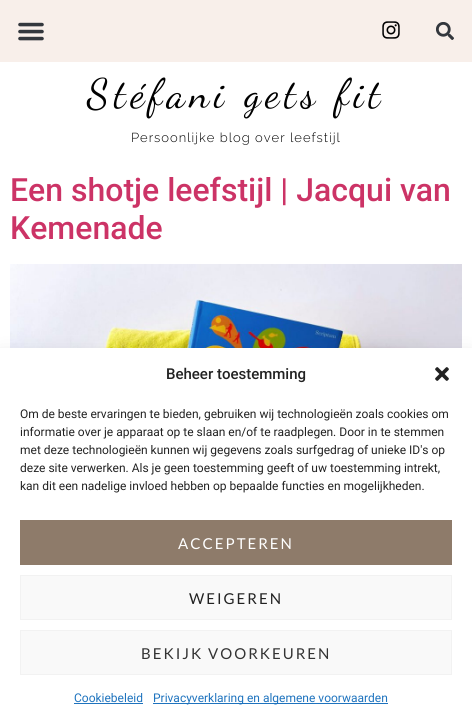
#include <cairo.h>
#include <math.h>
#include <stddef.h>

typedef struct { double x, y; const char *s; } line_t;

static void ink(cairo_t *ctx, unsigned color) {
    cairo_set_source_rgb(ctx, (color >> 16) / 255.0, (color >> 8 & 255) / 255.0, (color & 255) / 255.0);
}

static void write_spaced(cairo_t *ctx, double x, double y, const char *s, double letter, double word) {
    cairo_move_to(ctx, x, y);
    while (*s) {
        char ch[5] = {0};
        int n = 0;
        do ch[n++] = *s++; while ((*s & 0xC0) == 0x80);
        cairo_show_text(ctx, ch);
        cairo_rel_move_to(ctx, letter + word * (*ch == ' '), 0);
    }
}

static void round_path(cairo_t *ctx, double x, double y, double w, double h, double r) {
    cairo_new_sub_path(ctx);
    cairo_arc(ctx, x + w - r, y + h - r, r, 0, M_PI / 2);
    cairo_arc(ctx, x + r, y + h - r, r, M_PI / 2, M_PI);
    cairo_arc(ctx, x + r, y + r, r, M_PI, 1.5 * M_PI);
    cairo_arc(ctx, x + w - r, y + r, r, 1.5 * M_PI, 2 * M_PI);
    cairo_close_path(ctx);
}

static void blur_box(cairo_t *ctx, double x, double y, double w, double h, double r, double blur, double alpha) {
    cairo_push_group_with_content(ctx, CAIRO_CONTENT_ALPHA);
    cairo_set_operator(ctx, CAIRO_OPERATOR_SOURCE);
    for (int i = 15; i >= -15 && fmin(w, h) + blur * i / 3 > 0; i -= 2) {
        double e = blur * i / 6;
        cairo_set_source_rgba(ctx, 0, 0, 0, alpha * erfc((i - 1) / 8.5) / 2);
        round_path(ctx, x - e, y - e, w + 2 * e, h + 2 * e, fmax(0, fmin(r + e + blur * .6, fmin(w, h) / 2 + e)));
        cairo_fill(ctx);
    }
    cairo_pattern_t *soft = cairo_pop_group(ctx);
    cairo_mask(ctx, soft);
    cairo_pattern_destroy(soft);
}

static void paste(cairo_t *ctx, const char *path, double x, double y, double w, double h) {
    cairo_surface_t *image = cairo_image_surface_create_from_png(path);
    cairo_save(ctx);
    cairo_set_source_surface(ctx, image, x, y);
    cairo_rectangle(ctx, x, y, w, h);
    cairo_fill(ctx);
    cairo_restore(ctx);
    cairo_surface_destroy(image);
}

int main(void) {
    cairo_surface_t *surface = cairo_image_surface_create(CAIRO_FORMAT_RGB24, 472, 724);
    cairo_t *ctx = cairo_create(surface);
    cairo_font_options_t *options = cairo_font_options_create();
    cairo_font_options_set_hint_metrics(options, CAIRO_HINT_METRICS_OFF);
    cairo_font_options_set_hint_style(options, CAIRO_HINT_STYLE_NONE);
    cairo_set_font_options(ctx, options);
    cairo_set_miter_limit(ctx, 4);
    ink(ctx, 0xFFFFFF);
    cairo_paint(ctx);
    ink(ctx, 0xF8EFEA);
    cairo_rectangle(ctx, 0, 0, 472, 62);
    cairo_fill(ctx);
    paste(ctx, "media/1.png", 18, 22, 26, 19);
    paste(ctx, "media/2.png", 382, 21, 18, 18);
    paste(ctx, "media/3.png", 436, 22, 18, 18);
    cairo_select_font_face(ctx, "Dancing Script", CAIRO_FONT_SLANT_NORMAL, CAIRO_FONT_WEIGHT_NORMAL);
    cairo_set_font_size(ctx, 41);
    ink(ctx, 0x000000);
    write_spaced(ctx, 87, 107, "Stéfani gets fit", 5, 0);
    cairo_select_font_face(ctx, "Raleway Light", CAIRO_FONT_SLANT_NORMAL, CAIRO_FONT_WEIGHT_NORMAL);
    cairo_set_font_size(ctx, 13);
    write_spaced(ctx, 131, 142, "Persoonlijke blog over leefstijl", 1, 0);
    cairo_select_font_face(ctx, "Roboto Medium", CAIRO_FONT_SLANT_NORMAL, CAIRO_FONT_WEIGHT_NORMAL);
    cairo_set_font_size(ctx, 32);
    ink(ctx, 0xCC3366);
    cairo_move_to(ctx, 10, 201);
    cairo_show_text(ctx, "Een shotje leefstijl | Jacqui van");
    cairo_move_to(ctx, 10, 239);
    cairo_show_text(ctx, "Kemenade");
    paste(ctx, "media/4.png", 10, 264, 452, 84);
    ink(ctx, 0x000000);
    blur_box(ctx, 0, 358, 472, 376, 0, 10, 0.19);
    ink(ctx, 0xFFFFFF);
    cairo_rectangle(ctx, 0, 348, 472, 376);
    cairo_fill(ctx);
    cairo_set_font_size(ctx, 15);
    ink(ctx, 0x222222);
    cairo_move_to(ctx, 166, 379);
    cairo_show_text(ctx, "Beheer toestemming");
    paste(ctx, "media/5.png", 435, 367, 14, 14);
    cairo_select_font_face(ctx, "Roboto", CAIRO_FONT_SLANT_NORMAL, CAIRO_FONT_WEIGHT_NORMAL);
    cairo_set_font_size(ctx, 12);
    {
        static const line_t items[] = {
            {20, 418, "Om de beste ervaringen te bieden, gebruiken wij technologieën zoals cookies om"},
            {20, 436, "informatie over je apparaat op te slaan en/of te raadplegen. Door in te stemmen"},
            {20, 454, "met deze technologieën kunnen wij gegevens zoals surfgedrag of unieke ID's op"},
            {20, 472, "deze site verwerken. Als je geen toestemming geeft of uw toestemming intrekt,"},
            {20, 490, "kan dit een nadelige invloed hebben op bepaalde functies en mogelijkheden."},
        };
        for (size_t i = 0; i < sizeof items / sizeof *items; i++) {
            cairo_move_to(ctx, items[i].x, items[i].y);
            cairo_show_text(ctx, items[i].s);
        }
    }
    ink(ctx, 0x8E7B6A);
    cairo_rectangle(ctx, 20, 520, 432, 45);
    cairo_fill(ctx);
    cairo_select_font_face(ctx, "Lato", CAIRO_FONT_SLANT_NORMAL, CAIRO_FONT_WEIGHT_NORMAL);
    cairo_set_font_size(ctx, 15);
    ink(ctx, 0xFFFFFF);
    write_spaced(ctx, 178, 549, "ACCEPTEREN", 2, 0);
    ink(ctx, 0xF9F9F9);
    cairo_rectangle(ctx, 20.5, 575.5, 431, 44);
    cairo_fill_preserve(ctx);
    ink(ctx, 0xF2F2F2);
    cairo_set_line_width(ctx, 1);
    cairo_stroke(ctx);
    ink(ctx, 0x222222);
    write_spaced(ctx, 189, 604, "WEIGEREN", 2, 0);
    ink(ctx, 0xF9F9F9);
    cairo_rectangle(ctx, 20.5, 630.5, 431, 44);
    cairo_fill_preserve(ctx);
    ink(ctx, 0xF2F2F2);
    cairo_stroke(ctx);
    ink(ctx, 0x333333);
    write_spaced(ctx, 141, 659, "BEKIJK VOORKEUREN", 2, 0);
    cairo_select_font_face(ctx, "Roboto", CAIRO_FONT_SLANT_NORMAL, CAIRO_FONT_WEIGHT_NORMAL);
    cairo_set_font_size(ctx, 12);
    ink(ctx, 0x1E73BE);
    cairo_move_to(ctx, 74, 702);
    cairo_show_text(ctx, "Cookiebeleid");
    cairo_rectangle(ctx, 74, 703, 69, 1);
    cairo_fill(ctx);
    cairo_rectangle(ctx, 153, 703, 235, 1);
    cairo_fill(ctx);
    cairo_move_to(ctx, 153, 702);
    cairo_show_text(ctx, "Privacyverklaring en algemene voorwaarden");
    cairo_surface_write_to_png(surface, "image.png");
    cairo_font_options_destroy(options);
    cairo_destroy(ctx);
    cairo_surface_destroy(surface);
    return 0;
}
